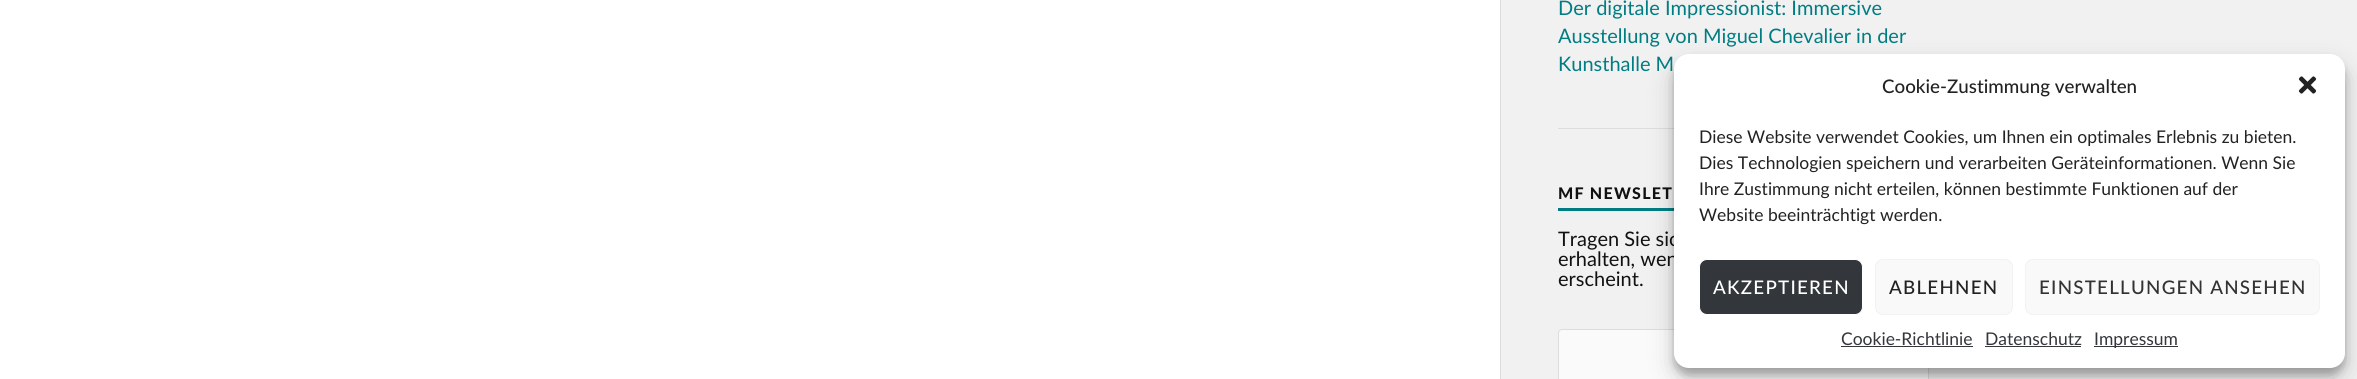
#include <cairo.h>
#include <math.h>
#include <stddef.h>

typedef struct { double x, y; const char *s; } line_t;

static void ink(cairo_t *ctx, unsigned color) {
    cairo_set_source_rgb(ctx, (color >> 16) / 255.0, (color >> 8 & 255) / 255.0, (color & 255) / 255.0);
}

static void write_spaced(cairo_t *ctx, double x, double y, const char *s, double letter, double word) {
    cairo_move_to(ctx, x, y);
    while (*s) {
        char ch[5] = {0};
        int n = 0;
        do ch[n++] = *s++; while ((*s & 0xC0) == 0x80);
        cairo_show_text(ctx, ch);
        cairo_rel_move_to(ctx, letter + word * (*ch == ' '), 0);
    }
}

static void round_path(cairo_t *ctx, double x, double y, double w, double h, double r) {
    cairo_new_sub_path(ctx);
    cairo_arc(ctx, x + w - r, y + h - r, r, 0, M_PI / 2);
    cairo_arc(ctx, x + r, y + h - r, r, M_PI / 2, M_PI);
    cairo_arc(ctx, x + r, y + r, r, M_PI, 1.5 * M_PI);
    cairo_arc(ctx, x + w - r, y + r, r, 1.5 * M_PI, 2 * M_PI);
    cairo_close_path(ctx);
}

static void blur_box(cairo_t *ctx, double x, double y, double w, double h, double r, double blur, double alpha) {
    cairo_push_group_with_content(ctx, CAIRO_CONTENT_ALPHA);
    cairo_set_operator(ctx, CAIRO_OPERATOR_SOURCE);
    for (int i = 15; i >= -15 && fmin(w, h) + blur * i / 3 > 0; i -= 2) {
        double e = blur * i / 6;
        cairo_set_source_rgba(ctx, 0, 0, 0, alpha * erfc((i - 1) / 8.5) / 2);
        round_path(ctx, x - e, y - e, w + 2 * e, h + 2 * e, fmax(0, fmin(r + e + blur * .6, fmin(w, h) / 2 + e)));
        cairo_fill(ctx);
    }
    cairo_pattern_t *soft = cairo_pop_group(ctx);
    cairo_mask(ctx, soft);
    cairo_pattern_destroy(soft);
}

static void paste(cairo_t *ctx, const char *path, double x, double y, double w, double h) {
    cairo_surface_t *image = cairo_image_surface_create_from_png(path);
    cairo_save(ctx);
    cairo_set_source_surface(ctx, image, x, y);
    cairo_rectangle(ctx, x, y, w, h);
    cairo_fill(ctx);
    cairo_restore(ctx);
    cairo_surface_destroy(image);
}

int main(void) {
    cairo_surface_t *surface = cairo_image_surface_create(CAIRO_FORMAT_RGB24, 2357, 379);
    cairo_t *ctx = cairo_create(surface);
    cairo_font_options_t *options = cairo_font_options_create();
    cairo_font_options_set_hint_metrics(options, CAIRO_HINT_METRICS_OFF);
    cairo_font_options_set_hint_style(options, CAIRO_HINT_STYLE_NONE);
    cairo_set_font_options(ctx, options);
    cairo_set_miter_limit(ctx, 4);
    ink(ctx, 0xF1F1F1);
    cairo_paint(ctx);
    ink(ctx, 0xFFFFFF);
    cairo_rectangle(ctx, 0, 0, 1500, 379);
    cairo_fill(ctx);
    ink(ctx, 0xDDDDDD);
    cairo_rectangle(ctx, 1500, 0, 1, 379);
    cairo_fill(ctx);
    cairo_select_font_face(ctx, "Lato", CAIRO_FONT_SLANT_NORMAL, CAIRO_FONT_WEIGHT_NORMAL);
    cairo_set_font_size(ctx, 20);
    ink(ctx, 0x007D83);
    {
        static const line_t items[] = {
            {1558, 15, "Der digitale Impressionist: Immersive"},
            {1558, 43, "Ausstellung von Miguel Chevalier in der"},
            {1558, 71, "Kunsthalle M"},
        };
        for (size_t i = 0; i < sizeof items / sizeof *items; i++) {
            cairo_move_to(ctx, items[i].x, items[i].y);
            cairo_show_text(ctx, items[i].s);
        }
    }
    ink(ctx, 0xDDDDDD);
    cairo_rectangle(ctx, 1558, 128, 116, 1);
    cairo_fill(ctx);
    ink(ctx, 0x007D83);
    cairo_rectangle(ctx, 1558, 208, 116, 3);
    cairo_fill(ctx);
    cairo_select_font_face(ctx, "Lato Black", CAIRO_FONT_SLANT_NORMAL, CAIRO_FONT_WEIGHT_NORMAL);
    cairo_set_font_size(ctx, 16);
    ink(ctx, 0x111111);
    write_spaced(ctx, 1558, 199, "MF NEWSLET", 1.25, 0);
    cairo_select_font_face(ctx, "Lato", CAIRO_FONT_SLANT_NORMAL, CAIRO_FONT_WEIGHT_NORMAL);
    cairo_set_font_size(ctx, 20);
    {
        static const line_t items[] = {
            {1558, 246, "Tragen Sie sic"},
            {1558, 266, "erhalten, wen"},
            {1558, 286, "erscheint."},
        };
        for (size_t i = 0; i < sizeof items / sizeof *items; i++) {
            cairo_move_to(ctx, items[i].x, items[i].y);
            cairo_show_text(ctx, items[i].s);
        }
    }
    ink(ctx, 0xFAFAFA);
    round_path(ctx, 1558.5, 329.5, 370, 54, 3.5);
    cairo_fill_preserve(ctx);
    ink(ctx, 0xDDDDDD);
    cairo_set_line_width(ctx, 1);
    cairo_stroke(ctx);
    ink(ctx, 0x000000);
    blur_box(ctx, 1674, 61, 671, 314, 15, 4, 0.23);
    blur_box(ctx, 1674, 66, 671, 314, 15, 12.5, 0.19);
    ink(ctx, 0xFFFFFF);
    round_path(ctx, 1674, 54, 671, 314, 15);
    cairo_fill(ctx);
    cairo_select_font_face(ctx, "Lato Medium", CAIRO_FONT_SLANT_NORMAL, CAIRO_FONT_WEIGHT_NORMAL);
    cairo_set_font_size(ctx, 18.75);
    ink(ctx, 0x222222);
    cairo_move_to(ctx, 1882, 93);
    cairo_show_text(ctx, "Cookie-Zustimmung verwalten");
    paste(ctx, "media/1.png", 2298, 76, 19, 18);
    cairo_select_font_face(ctx, "Lato", CAIRO_FONT_SLANT_NORMAL, CAIRO_FONT_WEIGHT_NORMAL);
    cairo_set_font_size(ctx, 17.5);
    {
        static const line_t items[] = {
            {1699, 143, "Diese Website verwendet Cookies, um Ihnen ein optimales Erlebnis zu bieten."},
            {1699, 169, "Dies Technologien speichern und verarbeiten Geräteinformationen. Wenn Sie"},
            {1699, 195, "Ihre Zustimmung nicht erteilen, können bestimmte Funktionen auf der"},
            {1699, 221, "Website beeinträchtigt werden."},
        };
        for (size_t i = 0; i < sizeof items / sizeof *items; i++) {
            cairo_move_to(ctx, items[i].x, items[i].y);
            cairo_show_text(ctx, items[i].s);
        }
    }
    ink(ctx, 0x33363B);
    round_path(ctx, 1699.5, 259.5, 163, 55, 7.5);
    cairo_fill_preserve(ctx);
    ink(ctx, 0xFFFFFF);
    cairo_stroke(ctx);
    cairo_select_font_face(ctx, "Lato Medium", CAIRO_FONT_SLANT_NORMAL, CAIRO_FONT_WEIGHT_NORMAL);
    cairo_set_font_size(ctx, 18.75);
    write_spaced(ctx, 1713, 294, "AKZEPTIEREN", 1.25, 0);
    ink(ctx, 0xF9F9F9);
    round_path(ctx, 1875.5, 259.5, 137, 55, 7.5);
    cairo_fill_preserve(ctx);
    ink(ctx, 0xF2F2F2);
    cairo_stroke(ctx);
    ink(ctx, 0x222222);
    write_spaced(ctx, 1889, 294, "ABLEHNEN", 1.25, 0);
    ink(ctx, 0xF9F9F9);
    round_path(ctx, 2025.5, 259.5, 294, 55, 7.5);
    cairo_fill_preserve(ctx);
    ink(ctx, 0xF2F2F2);
    cairo_stroke(ctx);
    ink(ctx, 0x333333);
    write_spaced(ctx, 2039, 294, "EINSTELLUNGEN ANSEHEN", 1.25, 0);
    cairo_select_font_face(ctx, "Lato", CAIRO_FONT_SLANT_NORMAL, CAIRO_FONT_WEIGHT_NORMAL);
    cairo_set_font_size(ctx, 17.5);
    ink(ctx, 0x33363B);
    cairo_move_to(ctx, 1841, 345);
    cairo_show_text(ctx, "Cookie-Richtlinie");
    cairo_rectangle(ctx, 1841, 346, 132, 1);
    cairo_fill(ctx);
    cairo_move_to(ctx, 1985, 345);
    cairo_show_text(ctx, "Datenschutz");
    cairo_rectangle(ctx, 1985, 346, 96, 1);
    cairo_fill(ctx);
    cairo_rectangle(ctx, 2094, 346, 84, 1);
    cairo_fill(ctx);
    cairo_move_to(ctx, 2094, 345);
    cairo_show_text(ctx, "Impressum");
    cairo_surface_write_to_png(surface, "image.png");
    cairo_font_options_destroy(options);
    cairo_destroy(ctx);
    cairo_surface_destroy(surface);
    return 0;
}
